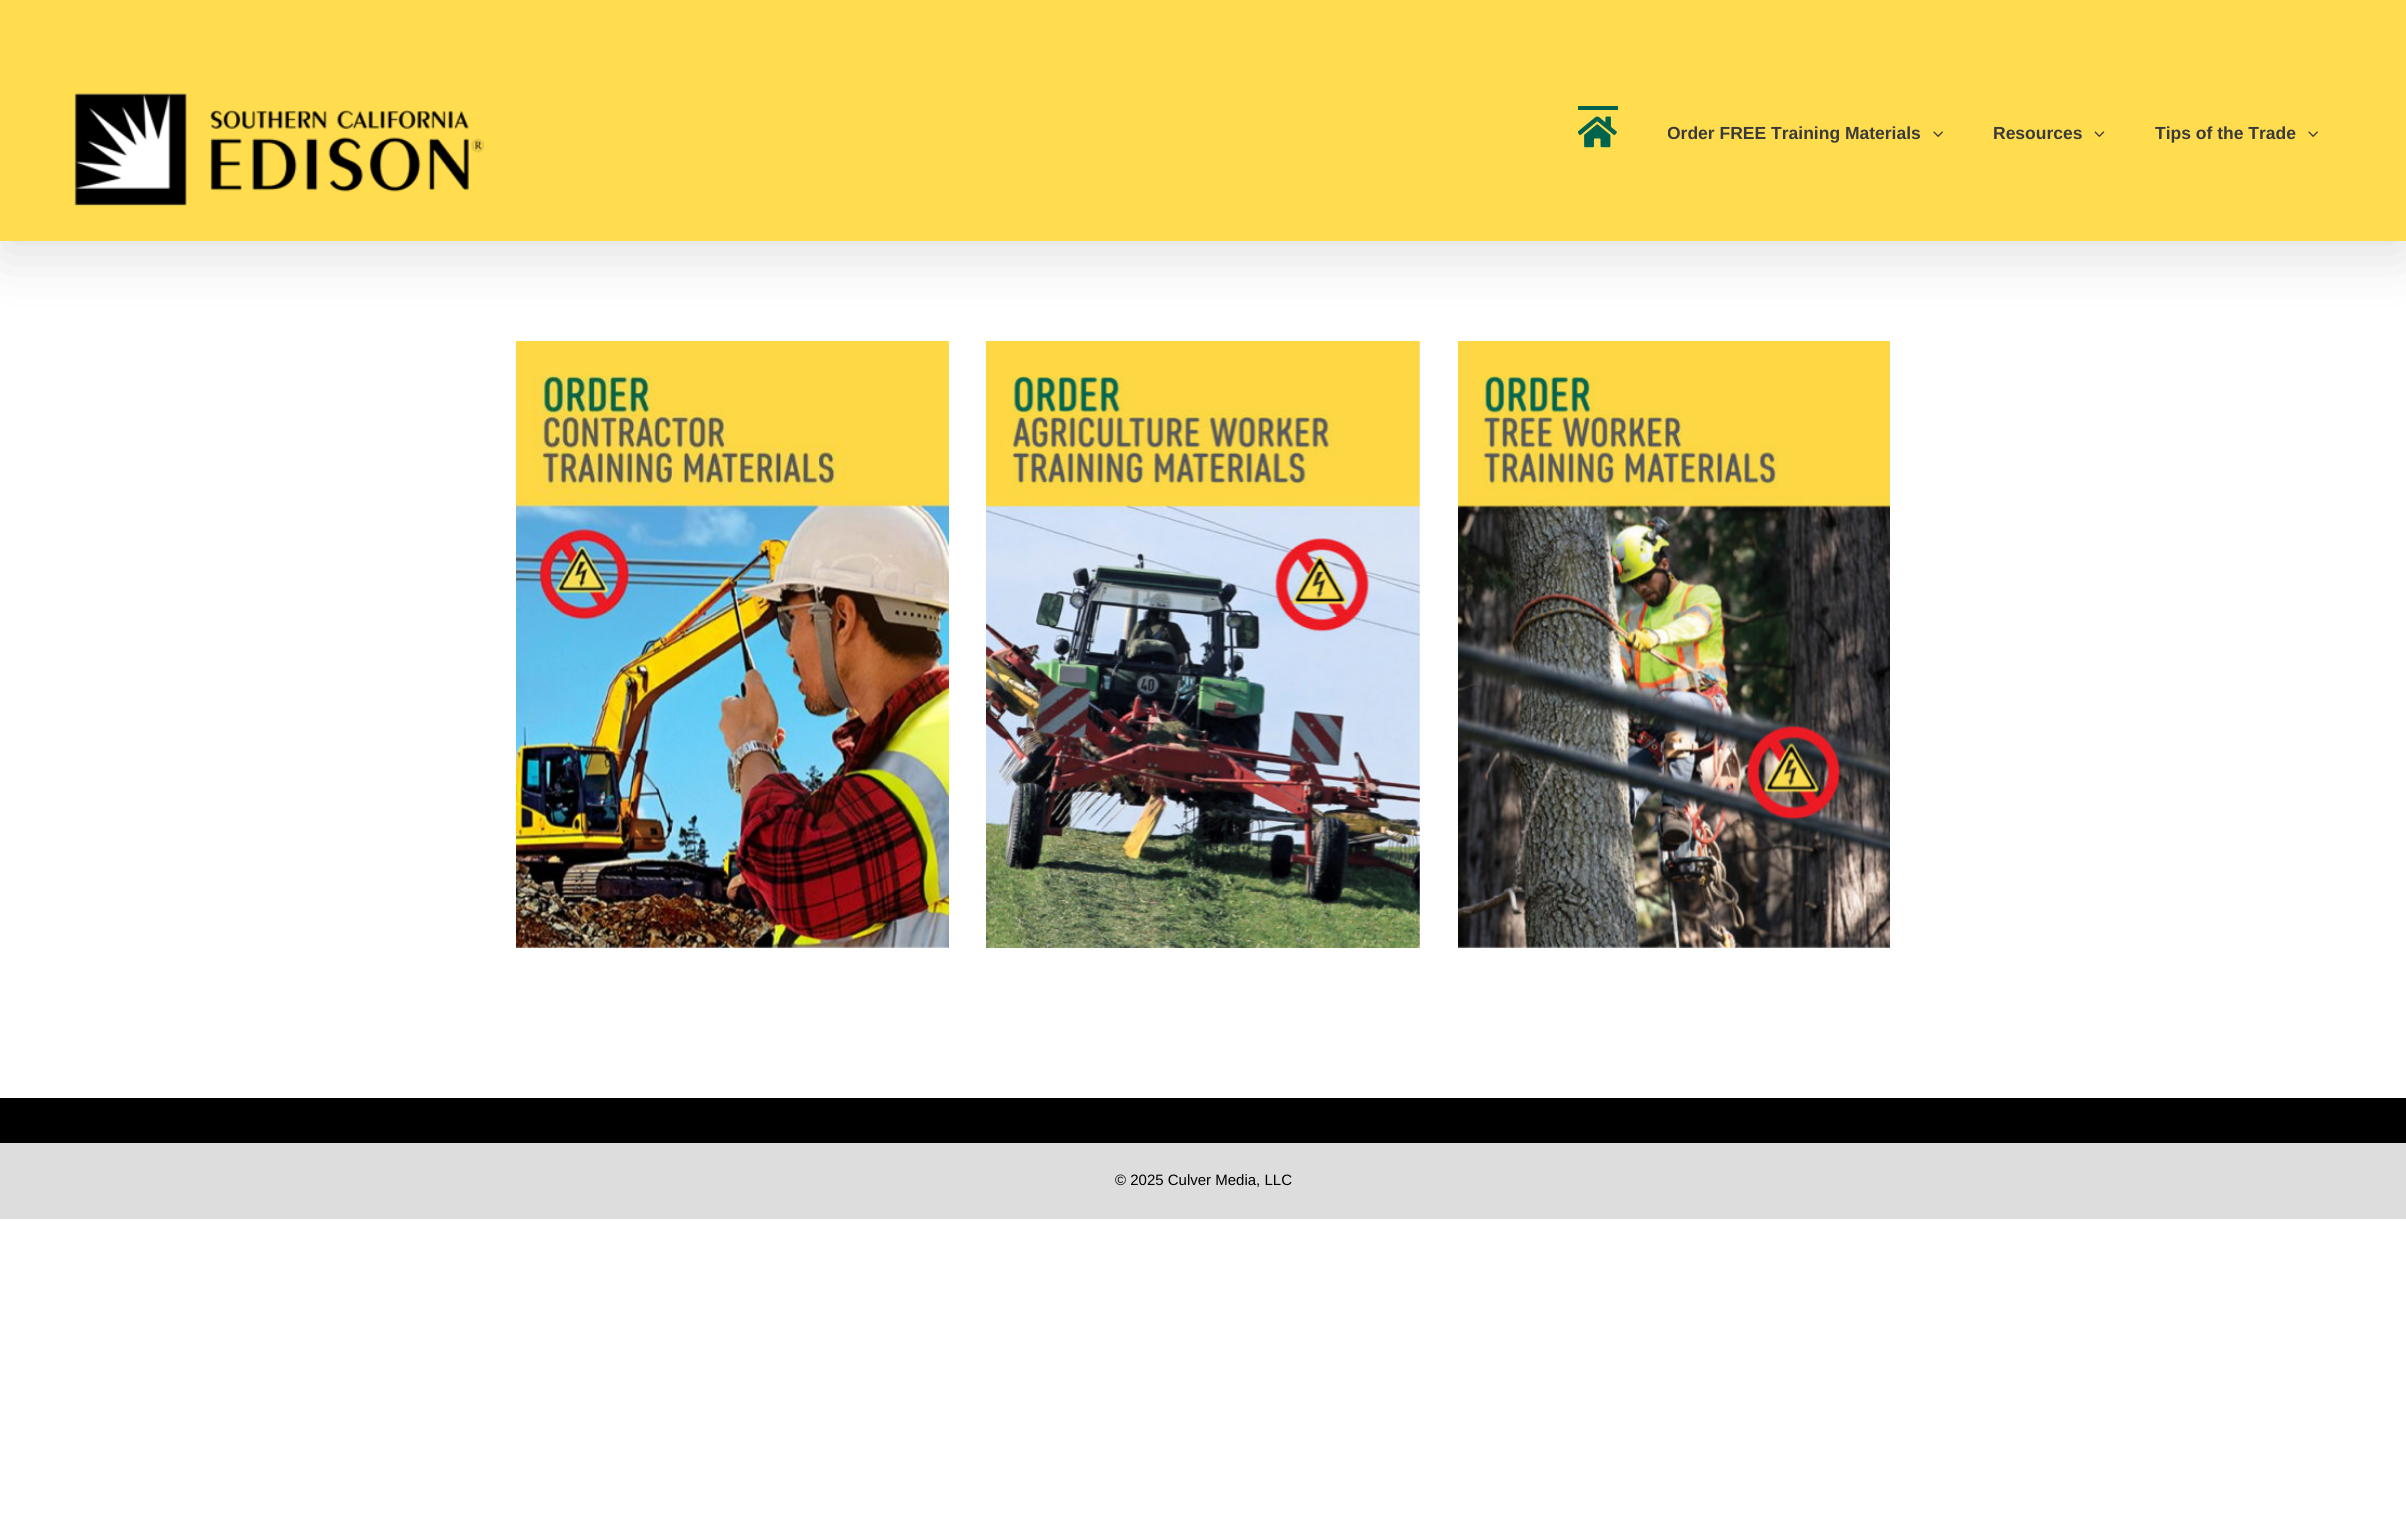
#include <cairo.h>
#include <math.h>
#include <stddef.h>


static void ink(cairo_t *ctx, unsigned color) {
    cairo_set_source_rgb(ctx, (color >> 16) / 255.0, (color >> 8 & 255) / 255.0, (color & 255) / 255.0);
}

static void round_path(cairo_t *ctx, double x, double y, double w, double h, double r) {
    cairo_new_sub_path(ctx);
    cairo_arc(ctx, x + w - r, y + h - r, r, 0, M_PI / 2);
    cairo_arc(ctx, x + r, y + h - r, r, M_PI / 2, M_PI);
    cairo_arc(ctx, x + r, y + r, r, M_PI, 1.5 * M_PI);
    cairo_arc(ctx, x + w - r, y + r, r, 1.5 * M_PI, 2 * M_PI);
    cairo_close_path(ctx);
}

static void blur_box(cairo_t *ctx, double x, double y, double w, double h, double r, double blur, double alpha) {
    cairo_push_group_with_content(ctx, CAIRO_CONTENT_ALPHA);
    cairo_set_operator(ctx, CAIRO_OPERATOR_SOURCE);
    for (int i = 15; i >= -15 && fmin(w, h) + blur * i / 3 > 0; i -= 2) {
        double e = blur * i / 6;
        cairo_set_source_rgba(ctx, 0, 0, 0, alpha * erfc((i - 1) / 8.5) / 2);
        round_path(ctx, x - e, y - e, w + 2 * e, h + 2 * e, fmax(0, fmin(r + e + blur * .6, fmin(w, h) / 2 + e)));
        cairo_fill(ctx);
    }
    cairo_pattern_t *soft = cairo_pop_group(ctx);
    cairo_mask(ctx, soft);
    cairo_pattern_destroy(soft);
}

static void paste(cairo_t *ctx, const char *path, double x, double y, double w, double h) {
    cairo_surface_t *image = cairo_image_surface_create_from_png(path);
    cairo_save(ctx);
    cairo_set_source_surface(ctx, image, x, y);
    cairo_rectangle(ctx, x, y, w, h);
    cairo_fill(ctx);
    cairo_restore(ctx);
    cairo_surface_destroy(image);
}

int main(void) {
    cairo_surface_t *surface = cairo_image_surface_create(CAIRO_FORMAT_RGB24, 2406, 1535);
    cairo_t *ctx = cairo_create(surface);
    cairo_font_options_t *options = cairo_font_options_create();
    cairo_font_options_set_hint_metrics(options, CAIRO_HINT_METRICS_OFF);
    cairo_font_options_set_hint_style(options, CAIRO_HINT_STYLE_NONE);
    cairo_set_font_options(ctx, options);
    cairo_set_miter_limit(ctx, 4);
    ink(ctx, 0xFFFFFF);
    cairo_paint(ctx);
    paste(ctx, "media/5.png", 516, 341, 433, 607);
    paste(ctx, "media/6.png", 986, 341, 434, 607);
    paste(ctx, "media/7.png", 1458, 341, 432, 607);
    ink(ctx, 0x000000);
    blur_box(ctx, 3, 15, 2401, 236, 0, 31, 0.14);
    ink(ctx, 0xFFDD4F);
    cairo_rectangle(ctx, 0, 0, 2406, 241);
    cairo_fill(ctx);
    paste(ctx, "media/1.png", 74, 93, 410, 113);
    ink(ctx, 0x00634E);
    cairo_rectangle(ctx, 1578, 106, 40, 4);
    cairo_fill(ctx);
    paste(ctx, "media/2.png", 1578, 116, 39, 32);
    cairo_save(ctx);
    cairo_rectangle(ctx, 1668, 106, 326, 50);
    cairo_clip(ctx);
    cairo_select_font_face(ctx, "Liberation Sans", CAIRO_FONT_SLANT_NORMAL, CAIRO_FONT_WEIGHT_BOLD);
    cairo_set_font_size(ctx, 17.5);
    ink(ctx, 0x3A3A3A);
    cairo_move_to(ctx, 1667, 139);
    cairo_show_text(ctx, "Order FREE Training Materials");
    cairo_restore(ctx);
    paste(ctx, "media/3.png", 1933, 131, 10, 6);
    cairo_select_font_face(ctx, "Liberation Sans", CAIRO_FONT_SLANT_NORMAL, CAIRO_FONT_WEIGHT_BOLD);
    cairo_set_font_size(ctx, 17.5);
    ink(ctx, 0x3A3A3A);
    cairo_move_to(ctx, 1993, 139);
    cairo_show_text(ctx, "Resources");
    paste(ctx, "media/4.png", 2094, 131, 11, 6);
    cairo_move_to(ctx, 2155, 139);
    cairo_show_text(ctx, "Tips of the Trade");
    paste(ctx, "media/3.png", 2308, 131, 10, 6);
    ink(ctx, 0x000000);
    cairo_rectangle(ctx, 0, 1098, 2406, 45);
    cairo_fill(ctx);
    ink(ctx, 0xDDDDDD);
    cairo_rectangle(ctx, 0, 1143, 2406, 76);
    cairo_fill(ctx);
    cairo_select_font_face(ctx, "Liberation Sans", CAIRO_FONT_SLANT_NORMAL, CAIRO_FONT_WEIGHT_NORMAL);
    cairo_set_font_size(ctx, 15);
    ink(ctx, 0x000000);
    cairo_move_to(ctx, 1115, 1185);
    cairo_show_text(ctx, "© 2025 Culver Media, LLC");
    cairo_surface_write_to_png(surface, "image.png");
    cairo_font_options_destroy(options);
    cairo_destroy(ctx);
    cairo_surface_destroy(surface);
    return 0;
}
